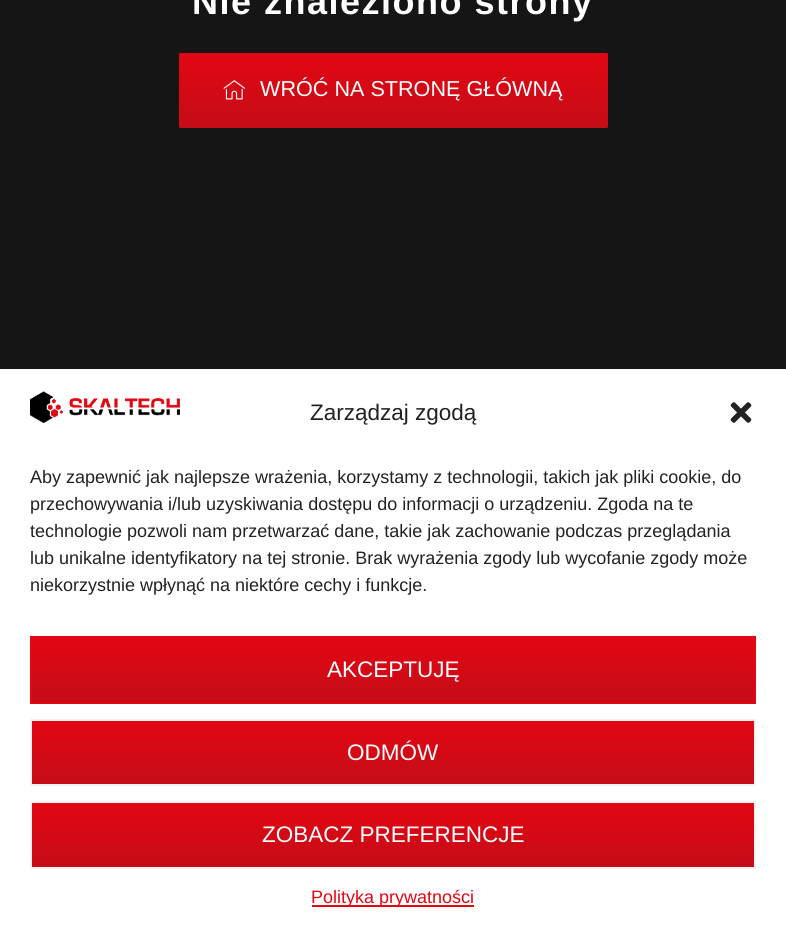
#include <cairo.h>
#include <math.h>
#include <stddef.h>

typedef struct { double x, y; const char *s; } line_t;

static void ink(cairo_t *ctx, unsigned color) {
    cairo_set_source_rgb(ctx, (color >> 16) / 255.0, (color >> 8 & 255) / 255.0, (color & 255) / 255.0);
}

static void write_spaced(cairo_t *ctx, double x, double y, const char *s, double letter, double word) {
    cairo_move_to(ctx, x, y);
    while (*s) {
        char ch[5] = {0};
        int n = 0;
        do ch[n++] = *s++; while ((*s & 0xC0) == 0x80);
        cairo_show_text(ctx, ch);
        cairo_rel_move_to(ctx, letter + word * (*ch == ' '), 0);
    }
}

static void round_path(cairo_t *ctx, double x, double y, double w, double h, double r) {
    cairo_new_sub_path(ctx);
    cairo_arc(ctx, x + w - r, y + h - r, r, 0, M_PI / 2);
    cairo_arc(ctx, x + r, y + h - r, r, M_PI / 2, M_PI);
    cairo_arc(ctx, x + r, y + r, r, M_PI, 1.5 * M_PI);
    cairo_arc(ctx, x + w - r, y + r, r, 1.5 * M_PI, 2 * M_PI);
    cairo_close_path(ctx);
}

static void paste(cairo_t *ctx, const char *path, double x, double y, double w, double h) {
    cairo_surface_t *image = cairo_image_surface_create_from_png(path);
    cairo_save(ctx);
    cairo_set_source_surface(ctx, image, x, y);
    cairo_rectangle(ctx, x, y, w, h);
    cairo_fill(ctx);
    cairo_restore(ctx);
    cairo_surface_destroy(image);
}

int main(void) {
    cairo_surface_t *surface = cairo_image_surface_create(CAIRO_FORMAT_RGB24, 786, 933);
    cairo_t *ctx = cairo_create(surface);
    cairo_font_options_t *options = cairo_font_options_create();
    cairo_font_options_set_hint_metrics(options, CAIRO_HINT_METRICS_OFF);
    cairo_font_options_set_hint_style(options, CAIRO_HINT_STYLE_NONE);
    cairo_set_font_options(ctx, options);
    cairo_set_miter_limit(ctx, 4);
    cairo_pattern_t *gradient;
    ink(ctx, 0x151515);
    cairo_paint(ctx);
    cairo_select_font_face(ctx, "Liberation Sans", CAIRO_FONT_SLANT_NORMAL, CAIRO_FONT_WEIGHT_BOLD);
    cairo_set_font_size(ctx, 36);
    ink(ctx, 0xFFFFFF);
    write_spaced(ctx, 192, 14, "Nie znaleziono strony", 1.5, 0);
    gradient = cairo_pattern_create_linear(393, 52, 393, 128);
    cairo_pattern_add_color_stop_rgba(gradient, 0, 0.89, 0.024, 0.075, 1);
    cairo_pattern_add_color_stop_rgba(gradient, 1, 0.769, 0.051, 0.094, 1);
    cairo_set_source(ctx, gradient);
    cairo_pattern_destroy(gradient);
    round_path(ctx, 179, 53, 429, 75, 1.5);
    cairo_fill(ctx);
    paste(ctx, "media/1.png", 223, 80, 23, 20);
    cairo_select_font_face(ctx, "Liberation Sans", CAIRO_FONT_SLANT_NORMAL, CAIRO_FONT_WEIGHT_NORMAL);
    cairo_set_font_size(ctx, 21.6);
    ink(ctx, 0xFFFFFF);
    cairo_move_to(ctx, 260, 96);
    cairo_show_text(ctx, "WRÓĆ NA STRONĘ GŁÓWNĄ");
    cairo_rectangle(ctx, 0, 369, 786, 564);
    cairo_fill(ctx);
    paste(ctx, "media/2.png", 30, 391, 150, 33);
    cairo_set_font_size(ctx, 22.5);
    ink(ctx, 0x222222);
    cairo_move_to(ctx, 310, 420);
    cairo_show_text(ctx, "Zarządzaj zgodą");
    paste(ctx, "media/3.png", 730, 402, 22, 21);
    cairo_set_font_size(ctx, 18);
    {
        static const line_t items[] = {
            {30, 483, "Aby zapewnić jak najlepsze wrażenia, korzystamy z technologii, takich jak pliki cookie, do"},
            {30, 510, "przechowywania i/lub uzyskiwania dostępu do informacji o urządzeniu. Zgoda na te"},
            {30, 537, "technologie pozwoli nam przetwarzać dane, takie jak zachowanie podczas przeglądania"},
            {30, 564, "lub unikalne identyfikatory na tej stronie. Brak wyrażenia zgody lub wycofanie zgody może"},
            {30, 591, "niekorzystnie wpłynąć na niektóre cechy i funkcje."},
        };
        for (size_t i = 0; i < sizeof items / sizeof *items; i++) {
            cairo_move_to(ctx, items[i].x, items[i].y);
            cairo_show_text(ctx, items[i].s);
        }
    }
    gradient = cairo_pattern_create_linear(393, 638, 393, 702);
    cairo_pattern_add_color_stop_rgba(gradient, 0, 0.89, 0.024, 0.075, 1);
    cairo_pattern_add_color_stop_rgba(gradient, 1, 0.769, 0.051, 0.094, 1);
    cairo_set_source(ctx, gradient);
    cairo_pattern_destroy(gradient);
    cairo_rectangle(ctx, 32, 638, 722, 64);
    cairo_fill(ctx);
    cairo_rectangle(ctx, 31, 637, 724, 66);
    ink(ctx, 0xE30613);
    cairo_stroke(ctx);
    cairo_set_font_size(ctx, 22.5);
    ink(ctx, 0xFFFFFF);
    cairo_move_to(ctx, 327, 677);
    cairo_show_text(ctx, "AKCEPTUJĘ");
    gradient = cairo_pattern_create_linear(393, 720, 393, 785);
    cairo_pattern_add_color_stop_rgba(gradient, 0, 0.89, 0.024, 0.075, 1);
    cairo_pattern_add_color_stop_rgba(gradient, 1, 0.769, 0.051, 0.094, 1);
    cairo_set_source(ctx, gradient);
    cairo_pattern_destroy(gradient);
    cairo_rectangle(ctx, 32, 721, 722, 63);
    cairo_fill(ctx);
    cairo_rectangle(ctx, 31, 720, 724, 65);
    ink(ctx, 0xF2F2F2);
    cairo_stroke(ctx);
    ink(ctx, 0xFFFFFF);
    cairo_move_to(ctx, 347, 760);
    cairo_show_text(ctx, "ODMÓW");
    gradient = cairo_pattern_create_linear(393, 803, 393, 867);
    cairo_pattern_add_color_stop_rgba(gradient, 0, 0.89, 0.024, 0.075, 1);
    cairo_pattern_add_color_stop_rgba(gradient, 1, 0.769, 0.051, 0.094, 1);
    cairo_set_source(ctx, gradient);
    cairo_pattern_destroy(gradient);
    cairo_rectangle(ctx, 32, 803, 722, 64);
    cairo_fill(ctx);
    cairo_rectangle(ctx, 31, 802, 724, 66);
    ink(ctx, 0xF2F2F2);
    cairo_stroke(ctx);
    ink(ctx, 0xFFFFFF);
    cairo_move_to(ctx, 262, 842);
    cairo_show_text(ctx, "ZOBACZ PREFERENCJE");
    ink(ctx, 0xE30613);
    cairo_rectangle(ctx, 312, 905, 162, 2);
    cairo_fill(ctx);
    cairo_set_font_size(ctx, 18);
    cairo_move_to(ctx, 311, 903);
    cairo_show_text(ctx, "Polityka prywatności");
    cairo_surface_write_to_png(surface, "image.png");
    cairo_font_options_destroy(options);
    cairo_destroy(ctx);
    cairo_surface_destroy(surface);
    return 0;
}
